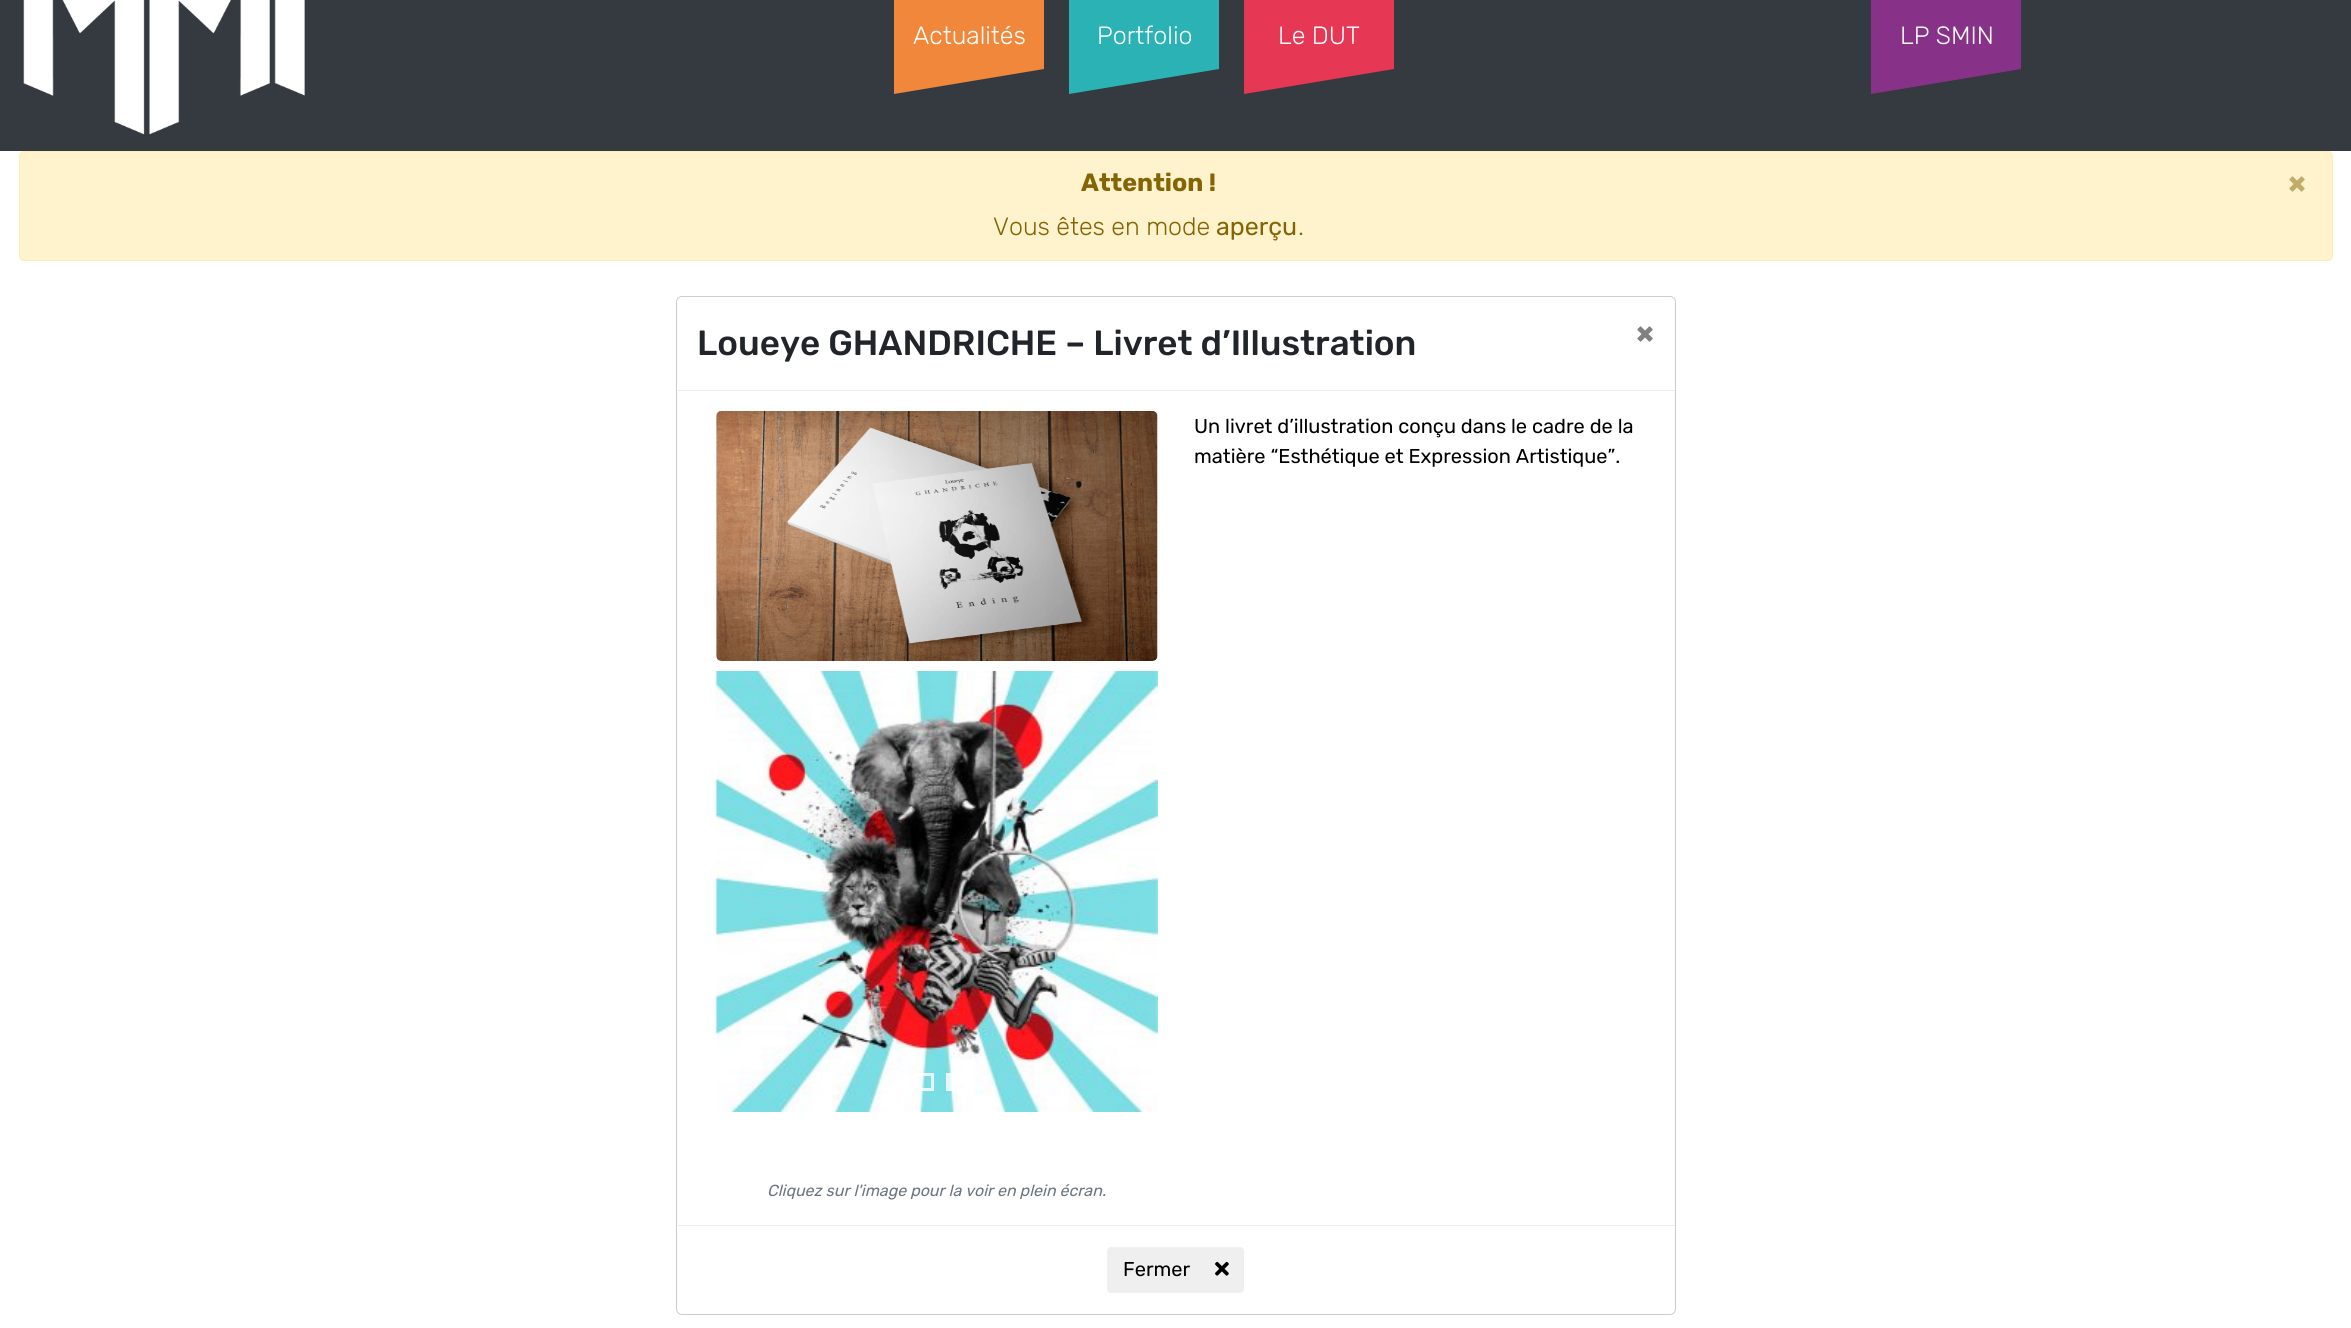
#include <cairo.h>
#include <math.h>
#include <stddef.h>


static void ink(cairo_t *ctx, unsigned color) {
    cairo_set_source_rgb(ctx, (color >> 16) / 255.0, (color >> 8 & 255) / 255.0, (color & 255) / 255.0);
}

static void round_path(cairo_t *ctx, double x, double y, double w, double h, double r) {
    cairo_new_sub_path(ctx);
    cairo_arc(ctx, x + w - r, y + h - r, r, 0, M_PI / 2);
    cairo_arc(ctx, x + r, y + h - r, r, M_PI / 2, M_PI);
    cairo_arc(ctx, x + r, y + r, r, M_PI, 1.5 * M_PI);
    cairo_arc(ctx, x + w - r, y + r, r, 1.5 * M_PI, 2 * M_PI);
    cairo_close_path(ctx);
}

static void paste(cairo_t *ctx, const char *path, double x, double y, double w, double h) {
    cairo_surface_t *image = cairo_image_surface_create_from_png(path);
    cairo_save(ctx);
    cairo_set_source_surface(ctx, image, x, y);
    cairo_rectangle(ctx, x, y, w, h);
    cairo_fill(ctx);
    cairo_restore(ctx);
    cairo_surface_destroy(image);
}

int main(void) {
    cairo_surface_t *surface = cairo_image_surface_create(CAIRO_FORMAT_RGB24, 2351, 1328);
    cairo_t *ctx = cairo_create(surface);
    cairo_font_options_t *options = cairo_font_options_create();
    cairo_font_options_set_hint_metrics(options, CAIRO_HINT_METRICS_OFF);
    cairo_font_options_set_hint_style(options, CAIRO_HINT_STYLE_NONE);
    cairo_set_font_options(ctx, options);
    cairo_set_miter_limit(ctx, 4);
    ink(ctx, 0xFFFFFF);
    cairo_paint(ctx);
    ink(ctx, 0x343A40);
    cairo_rectangle(ctx, 0, 0, 2351, 151);
    cairo_fill(ctx);
    paste(ctx, "media/1.png", 23, 0, 282, 135);
    ink(ctx, 0xF0873B);
    cairo_new_path(ctx);
    cairo_move_to(ctx, 894, 94);
    cairo_line_to(ctx, 894, -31);
    cairo_line_to(ctx, 1044, -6);
    cairo_line_to(ctx, 1044, 69);
    cairo_close_path(ctx);
    cairo_fill(ctx);
    cairo_select_font_face(ctx, "Rubik Light", CAIRO_FONT_SLANT_NORMAL, CAIRO_FONT_WEIGHT_NORMAL);
    cairo_set_font_size(ctx, 25);
    ink(ctx, 0xFFFFFF);
    cairo_move_to(ctx, 913, 44);
    cairo_show_text(ctx, "Actualités");
    ink(ctx, 0x2BB2B4);
    cairo_new_path(ctx);
    cairo_move_to(ctx, 1069, 94);
    cairo_line_to(ctx, 1069, -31);
    cairo_line_to(ctx, 1219, -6);
    cairo_line_to(ctx, 1219, 69);
    cairo_close_path(ctx);
    cairo_fill(ctx);
    ink(ctx, 0xFFFFFF);
    cairo_move_to(ctx, 1097, 44);
    cairo_show_text(ctx, "Portfolio");
    ink(ctx, 0xE63754);
    cairo_new_path(ctx);
    cairo_move_to(ctx, 1244, 94);
    cairo_line_to(ctx, 1244, -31);
    cairo_line_to(ctx, 1394, -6);
    cairo_line_to(ctx, 1394, 69);
    cairo_close_path(ctx);
    cairo_fill(ctx);
    ink(ctx, 0xFFFFFF);
    cairo_move_to(ctx, 1278, 44);
    cairo_show_text(ctx, "Le DUT");
    ink(ctx, 0x883188);
    cairo_new_path(ctx);
    cairo_move_to(ctx, 1871, 94);
    cairo_line_to(ctx, 1871, -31);
    cairo_line_to(ctx, 2021, -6);
    cairo_line_to(ctx, 2021, 69);
    cairo_close_path(ctx);
    cairo_fill(ctx);
    ink(ctx, 0xFFFFFF);
    cairo_move_to(ctx, 1900, 44);
    cairo_show_text(ctx, "LP SMIN");
    ink(ctx, 0xFFF3CD);
    round_path(ctx, 19.5, 151.5, 2313, 109, 4.5);
    cairo_fill_preserve(ctx);
    ink(ctx, 0xFFEEBA);
    cairo_set_line_width(ctx, 1);
    cairo_stroke(ctx);
    cairo_select_font_face(ctx, "Rubik", CAIRO_FONT_SLANT_NORMAL, CAIRO_FONT_WEIGHT_BOLD);
    ink(ctx, 0x856404);
    cairo_move_to(ctx, 1081, 191);
    cairo_show_text(ctx, "Attention !");
    cairo_set_font_size(ctx, 30);
    ink(ctx, 0xC2AC69);
    cairo_move_to(ctx, 2288, 193);
    cairo_show_text(ctx, "×");
    cairo_select_font_face(ctx, "Rubik Light", CAIRO_FONT_SLANT_NORMAL, CAIRO_FONT_WEIGHT_NORMAL);
    cairo_set_font_size(ctx, 25);
    ink(ctx, 0x856404);
    cairo_move_to(ctx, 993, 235);
    cairo_show_text(ctx, "Vous êtes en mode");
    cairo_select_font_face(ctx, "Rubik", CAIRO_FONT_SLANT_NORMAL, CAIRO_FONT_WEIGHT_NORMAL);
    cairo_move_to(ctx, 1216, 235);
    cairo_show_text(ctx, "aperçu");
    cairo_select_font_face(ctx, "Rubik Light", CAIRO_FONT_SLANT_NORMAL, CAIRO_FONT_WEIGHT_NORMAL);
    cairo_move_to(ctx, 1298, 235);
    cairo_show_text(ctx, ".");
    round_path(ctx, 676.5, 296.5, 999, 1018, 5.5);
    ink(ctx, 0xCCCCCC);
    cairo_stroke(ctx);
    ink(ctx, 0xE9ECEF);
    cairo_rectangle(ctx, 678, 390, 997, 1);
    cairo_fill(ctx);
    cairo_select_font_face(ctx, "Rubik Medium", CAIRO_FONT_SLANT_NORMAL, CAIRO_FONT_WEIGHT_NORMAL);
    cairo_set_font_size(ctx, 35);
    ink(ctx, 0x212529);
    cairo_move_to(ctx, 697, 355);
    cairo_show_text(ctx, "Loueye GHANDRICHE – Livret d’Illustration");
    cairo_select_font_face(ctx, "Rubik", CAIRO_FONT_SLANT_NORMAL, CAIRO_FONT_WEIGHT_BOLD);
    cairo_set_font_size(ctx, 30);
    ink(ctx, 0x808080);
    cairo_move_to(ctx, 1636, 343);
    cairo_show_text(ctx, "×");
    cairo_select_font_face(ctx, "Rubik", CAIRO_FONT_SLANT_NORMAL, CAIRO_FONT_WEIGHT_NORMAL);
    cairo_set_font_size(ctx, 20);
    ink(ctx, 0x000000);
    cairo_move_to(ctx, 1194, 433);
    cairo_show_text(ctx, "Un livret d’illustration conçu dans le cadre de la");
    cairo_move_to(ctx, 1194, 463);
    cairo_show_text(ctx, "matière “Esthétique et Expression Artistique”.");
    paste(ctx, "media/2.png", 716, 411, 442, 250);
    paste(ctx, "media/3.png", 715, 671, 443, 441);
    cairo_rectangle(ctx, 916.5, 1074.5, 16, 15);
    cairo_set_source_rgba(ctx, 1, 1, 1, 0.8);
    cairo_set_line_width(ctx, 3);
    cairo_stroke(ctx);
    cairo_rectangle(ctx, 946, 1073, 8, 18);
    cairo_fill(ctx);
    cairo_select_font_face(ctx, "Rubik", CAIRO_FONT_SLANT_ITALIC, CAIRO_FONT_WEIGHT_NORMAL);
    cairo_set_font_size(ctx, 16);
    ink(ctx, 0x6C757D);
    cairo_move_to(ctx, 767, 1196);
    cairo_show_text(ctx, "Cliquez sur l'image pour la voir en plein écran.");
    ink(ctx, 0xE9ECEF);
    cairo_rectangle(ctx, 678, 1225, 997, 1);
    cairo_fill(ctx);
    ink(ctx, 0xEFEFEF);
    round_path(ctx, 1106.5, 1246.5, 138, 47, 4.5);
    cairo_fill_preserve(ctx);
    ink(ctx, 0xFFFFFF);
    cairo_set_line_width(ctx, 1);
    cairo_stroke(ctx);
    cairo_select_font_face(ctx, "Rubik", CAIRO_FONT_SLANT_NORMAL, CAIRO_FONT_WEIGHT_NORMAL);
    cairo_set_font_size(ctx, 20);
    ink(ctx, 0x000000);
    cairo_move_to(ctx, 1123, 1276);
    cairo_show_text(ctx, "Fermer");
    paste(ctx, "media/4.png", 1215, 1261, 14, 15);
    cairo_surface_write_to_png(surface, "image.png");
    cairo_font_options_destroy(options);
    cairo_destroy(ctx);
    cairo_surface_destroy(surface);
    return 0;
}
